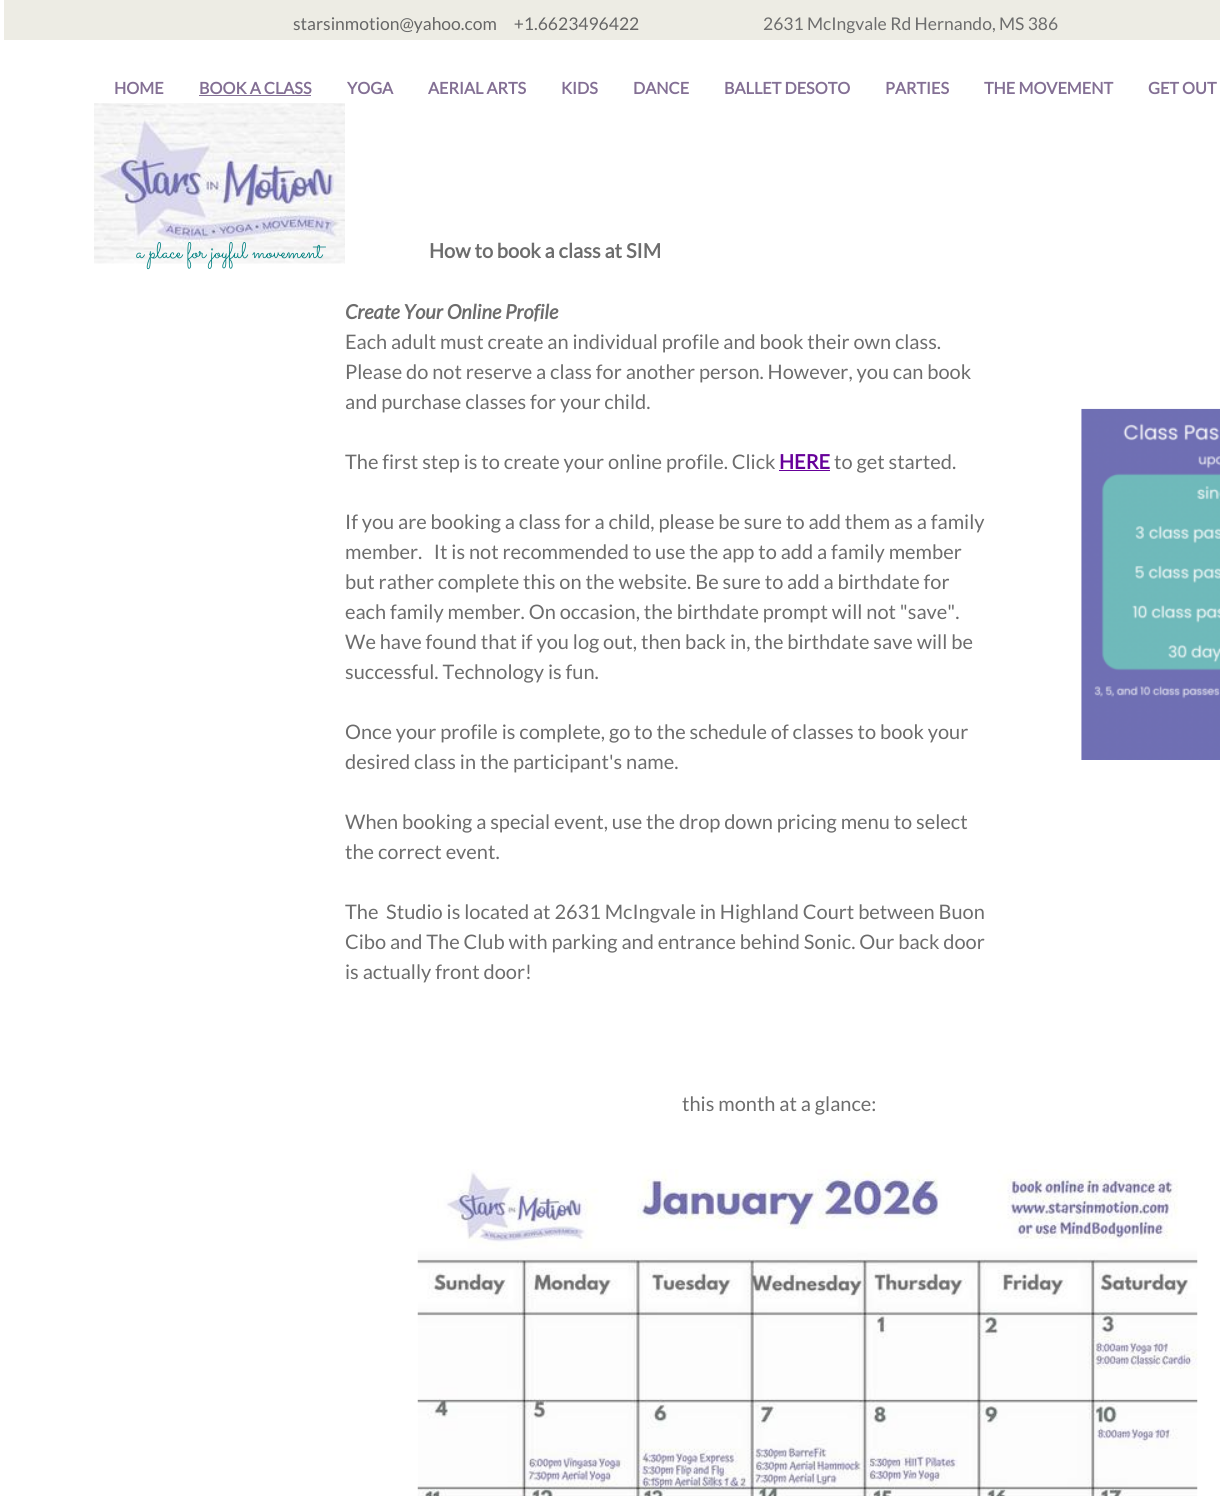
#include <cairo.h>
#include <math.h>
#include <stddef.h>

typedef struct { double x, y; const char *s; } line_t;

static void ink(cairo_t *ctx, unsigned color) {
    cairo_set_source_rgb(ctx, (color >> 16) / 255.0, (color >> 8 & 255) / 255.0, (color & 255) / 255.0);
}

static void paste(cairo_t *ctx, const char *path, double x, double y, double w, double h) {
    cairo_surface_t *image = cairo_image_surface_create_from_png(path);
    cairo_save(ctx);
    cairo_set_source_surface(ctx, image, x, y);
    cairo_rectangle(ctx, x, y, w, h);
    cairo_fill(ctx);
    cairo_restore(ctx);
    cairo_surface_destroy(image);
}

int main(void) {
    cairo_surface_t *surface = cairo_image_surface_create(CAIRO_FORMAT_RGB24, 1220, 1496);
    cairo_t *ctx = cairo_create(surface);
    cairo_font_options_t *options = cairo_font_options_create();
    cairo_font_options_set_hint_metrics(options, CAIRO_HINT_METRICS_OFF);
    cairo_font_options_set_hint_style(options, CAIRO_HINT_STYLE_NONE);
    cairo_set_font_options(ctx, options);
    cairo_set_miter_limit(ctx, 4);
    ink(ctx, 0xFFFFFF);
    cairo_paint(ctx);
    ink(ctx, 0xEDECE4);
    cairo_rectangle(ctx, 4, 0, 1216, 40);
    cairo_fill(ctx);
    cairo_select_font_face(ctx, "Lato", CAIRO_FONT_SLANT_NORMAL, CAIRO_FONT_WEIGHT_NORMAL);
    cairo_set_font_size(ctx, 17.5);
    ink(ctx, 0x666666);
    cairo_move_to(ctx, 293, 30);
    cairo_show_text(ctx, "starsinmotion@yahoo.com     +1.6623496422");
    ink(ctx, 0x6D6D6D);
    cairo_move_to(ctx, 763, 30);
    cairo_show_text(ctx, "2631 McIngvale Rd Hernando, MS 386");
    cairo_select_font_face(ctx, "Lato", CAIRO_FONT_SLANT_NORMAL, CAIRO_FONT_WEIGHT_BOLD);
    cairo_set_font_size(ctx, 16.25);
    ink(ctx, 0x836F94);
    cairo_move_to(ctx, 114, 94);
    cairo_show_text(ctx, "HOME");
    cairo_move_to(ctx, 199, 94);
    cairo_show_text(ctx, "BOOK A CLASS");
    cairo_rectangle(ctx, 199, 95, 112, 1);
    cairo_fill(ctx);
    {
        static const line_t items[] = {
            {347, 94, "YOGA"},
            {428, 94, "AERIAL ARTS"},
            {561, 94, "KIDS"},
            {633, 94, "DANCE"},
            {724, 94, "BALLET DESOTO"},
            {885, 94, "PARTIES"},
            {984, 94, "THE MOVEMENT"},
            {1148, 94, "GET OUT"},
        };
        for (size_t i = 0; i < sizeof items / sizeof *items; i++) {
            cairo_move_to(ctx, items[i].x, items[i].y);
            cairo_show_text(ctx, items[i].s);
        }
    }
    paste(ctx, "media/1.png", 94, 103, 251, 161);
    cairo_select_font_face(ctx, "Sacramento", CAIRO_FONT_SLANT_NORMAL, CAIRO_FONT_WEIGHT_NORMAL);
    cairo_set_font_size(ctx, 22.5);
    ink(ctx, 0x008080);
    cairo_move_to(ctx, 136, 258);
    cairo_show_text(ctx, "a place for joyful movement");
    cairo_select_font_face(ctx, "Lato", CAIRO_FONT_SLANT_NORMAL, CAIRO_FONT_WEIGHT_BOLD);
    cairo_set_font_size(ctx, 20);
    ink(ctx, 0x6D6D6D);
    cairo_move_to(ctx, 429, 258);
    cairo_show_text(ctx, "How to book a class at SIM");
    cairo_select_font_face(ctx, "Lato", CAIRO_FONT_SLANT_ITALIC, CAIRO_FONT_WEIGHT_BOLD);
    cairo_move_to(ctx, 345, 319);
    cairo_show_text(ctx, "Create Your Online Profile");
    cairo_select_font_face(ctx, "Lato", CAIRO_FONT_SLANT_NORMAL, CAIRO_FONT_WEIGHT_NORMAL);
    {
        static const line_t items[] = {
            {345, 349, "Each adult must create an individual profile and book their own class."},
            {345, 379, "Please do not reserve a class for another person. However, you can book"},
            {345, 409, "and purchase classes for your child."},
            {345, 469, "The first step is to create your online profile. Click"},
        };
        for (size_t i = 0; i < sizeof items / sizeof *items; i++) {
            cairo_move_to(ctx, items[i].x, items[i].y);
            cairo_show_text(ctx, items[i].s);
        }
    }
    cairo_select_font_face(ctx, "Lato", CAIRO_FONT_SLANT_NORMAL, CAIRO_FONT_WEIGHT_BOLD);
    ink(ctx, 0x660099);
    cairo_move_to(ctx, 779, 469);
    cairo_show_text(ctx, "HERE");
    cairo_rectangle(ctx, 779, 470, 51, 1);
    cairo_fill(ctx);
    cairo_select_font_face(ctx, "Lato", CAIRO_FONT_SLANT_NORMAL, CAIRO_FONT_WEIGHT_NORMAL);
    ink(ctx, 0x6D6D6D);
    {
        static const line_t items[] = {
            {834, 469, "to get started."},
            {345, 529, "If you are booking a class for a child, please be sure to add them as a family"},
            {345, 559, "member.   It is not recommended to use the app to add a family member"},
            {345, 589, "but rather complete this on the website. Be sure to add a birthdate for"},
            {345, 619, "each family member. On occasion, the birthdate prompt will not \"save\"."},
            {345, 649, "We have found that if you log out, then back in, the birthdate save will be"},
            {345, 679, "successful. Technology is fun."},
            {345, 739, "Once your profile is complete, go to the schedule of classes to book your"},
            {345, 769, "desired class in the participant's name."},
            {345, 829, "When booking a special event, use the drop down pricing menu to select"},
            {345, 859, "the correct event."},
            {345, 919, "The  Studio is located at 2631 McIngvale in Highland Court between Buon"},
            {345, 949, "Cibo and The Club with parking and entrance behind Sonic. Our back door"},
            {345, 979, "is actually front door!"},
        };
        for (size_t i = 0; i < sizeof items / sizeof *items; i++) {
            cairo_move_to(ctx, items[i].x, items[i].y);
            cairo_show_text(ctx, items[i].s);
        }
    }
    paste(ctx, "media/2.png", 1081, 408, 139, 352);
    cairo_move_to(ctx, 682, 1111);
    cairo_show_text(ctx, "this month at a glance:");
    paste(ctx, "media/3.png", 417, 1169, 781, 327);
    cairo_surface_write_to_png(surface, "image.png");
    cairo_font_options_destroy(options);
    cairo_destroy(ctx);
    cairo_surface_destroy(surface);
    return 0;
}
